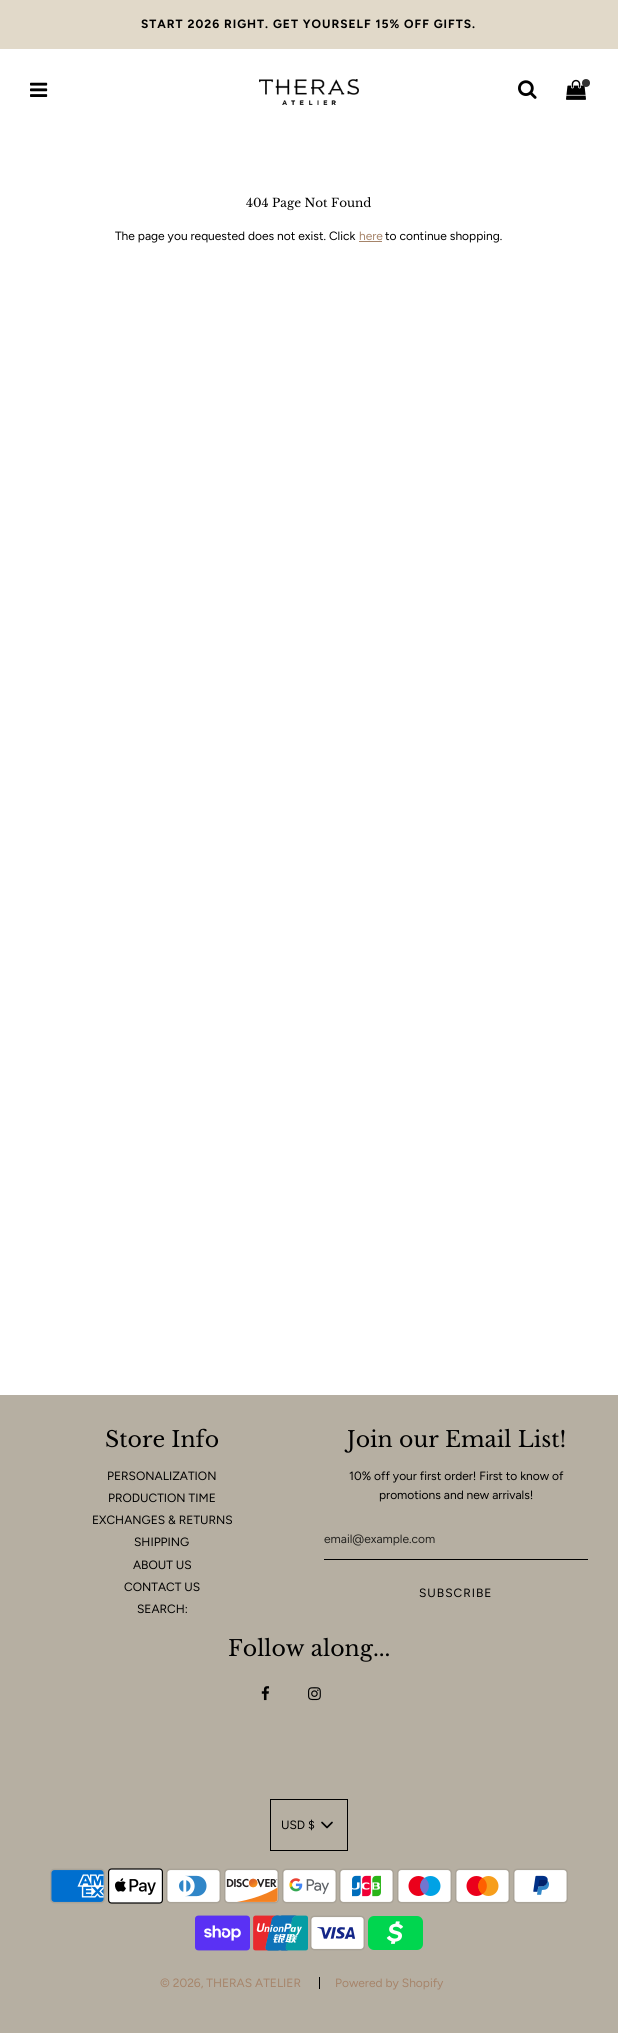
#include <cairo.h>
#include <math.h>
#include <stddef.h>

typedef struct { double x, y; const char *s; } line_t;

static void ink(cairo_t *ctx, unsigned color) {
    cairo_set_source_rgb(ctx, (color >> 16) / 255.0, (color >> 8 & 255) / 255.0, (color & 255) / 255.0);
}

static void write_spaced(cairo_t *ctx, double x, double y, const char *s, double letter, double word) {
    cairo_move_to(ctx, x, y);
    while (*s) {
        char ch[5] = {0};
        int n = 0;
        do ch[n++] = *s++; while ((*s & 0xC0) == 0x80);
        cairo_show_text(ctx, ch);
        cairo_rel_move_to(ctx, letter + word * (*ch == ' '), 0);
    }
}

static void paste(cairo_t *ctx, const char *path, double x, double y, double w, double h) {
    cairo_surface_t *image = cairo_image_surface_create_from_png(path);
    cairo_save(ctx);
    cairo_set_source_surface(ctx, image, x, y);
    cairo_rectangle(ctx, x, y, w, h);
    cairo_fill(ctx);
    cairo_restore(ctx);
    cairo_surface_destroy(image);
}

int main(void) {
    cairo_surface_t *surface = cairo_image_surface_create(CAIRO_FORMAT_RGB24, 618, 2033);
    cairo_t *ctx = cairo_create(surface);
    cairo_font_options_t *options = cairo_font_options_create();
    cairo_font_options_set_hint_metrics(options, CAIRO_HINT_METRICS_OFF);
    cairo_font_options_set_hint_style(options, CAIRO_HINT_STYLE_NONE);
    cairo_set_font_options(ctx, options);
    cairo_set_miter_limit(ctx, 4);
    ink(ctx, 0xFFFFFF);
    cairo_paint(ctx);
    ink(ctx, 0xE1D9C9);
    cairo_rectangle(ctx, 0, 0, 618, 49);
    cairo_fill(ctx);
    cairo_select_font_face(ctx, "Figtree", CAIRO_FONT_SLANT_NORMAL, CAIRO_FONT_WEIGHT_BOLD);
    cairo_set_font_size(ctx, 12);
    ink(ctx, 0x000000);
    write_spaced(ctx, 141, 28, "START 2026 RIGHT. GET YOURSELF 15% OFF GIFTS.", 1, 0);
    paste(ctx, "media/1.png", 30, 82, 18, 15);
    paste(ctx, "media/2.png", 259, 79, 100, 26);
    paste(ctx, "media/3.png", 518, 80, 19, 19);
    paste(ctx, "media/4.png", 566, 79, 20, 21);
    ink(ctx, 0x333333);
    cairo_arc(ctx, 586, 83, 4, 0, 2 * M_PI);
    cairo_fill(ctx);
    cairo_select_font_face(ctx, "Libre Baskerville", CAIRO_FONT_SLANT_NORMAL, CAIRO_FONT_WEIGHT_NORMAL);
    ink(ctx, 0x000000);
    cairo_move_to(ctx, 246, 207);
    cairo_show_text(ctx, "404 Page Not Found");
    cairo_select_font_face(ctx, "Figtree", CAIRO_FONT_SLANT_NORMAL, CAIRO_FONT_WEIGHT_NORMAL);
    cairo_move_to(ctx, 115, 240);
    cairo_show_text(ctx, "The page you requested does not exist. Click");
    ink(ctx, 0xA6846A);
    cairo_move_to(ctx, 359, 240);
    cairo_show_text(ctx, "here");
    cairo_rectangle(ctx, 359, 241, 23, 1);
    cairo_fill(ctx);
    ink(ctx, 0x000000);
    cairo_move_to(ctx, 385, 240);
    cairo_show_text(ctx, "to continue shopping.");
    ink(ctx, 0xB6AFA2);
    cairo_rectangle(ctx, 0, 1395, 618, 638);
    cairo_fill(ctx);
    cairo_select_font_face(ctx, "Libre Baskerville", CAIRO_FONT_SLANT_NORMAL, CAIRO_FONT_WEIGHT_NORMAL);
    cairo_set_font_size(ctx, 22);
    ink(ctx, 0x000000);
    cairo_move_to(ctx, 105, 1447);
    cairo_show_text(ctx, "Store Info");
    cairo_select_font_face(ctx, "Figtree", CAIRO_FONT_SLANT_NORMAL, CAIRO_FONT_WEIGHT_NORMAL);
    cairo_set_font_size(ctx, 12);
    {
        static const line_t items[] = {
            {107, 1480, "PERSONALIZATION"},
            {108, 1502, "PRODUCTION TIME"},
            {92, 1524, "EXCHANGES & RETURNS"},
            {134, 1546, "SHIPPING"},
            {133, 1569, "ABOUT US"},
            {124, 1591, "CONTACT US"},
            {137, 1613, "SEARCH:"},
        };
        for (size_t i = 0; i < sizeof items / sizeof *items; i++) {
            cairo_move_to(ctx, items[i].x, items[i].y);
            cairo_show_text(ctx, items[i].s);
        }
    }
    cairo_select_font_face(ctx, "Libre Baskerville", CAIRO_FONT_SLANT_NORMAL, CAIRO_FONT_WEIGHT_NORMAL);
    cairo_set_font_size(ctx, 22);
    cairo_move_to(ctx, 347, 1447);
    cairo_show_text(ctx, "Join our Email List!");
    cairo_select_font_face(ctx, "Figtree", CAIRO_FONT_SLANT_NORMAL, CAIRO_FONT_WEIGHT_NORMAL);
    cairo_set_font_size(ctx, 12);
    cairo_move_to(ctx, 349, 1480);
    cairo_show_text(ctx, "10% off your first order! First to know of");
    cairo_move_to(ctx, 379, 1499);
    cairo_show_text(ctx, "promotions and new arrivals!");
    cairo_rectangle(ctx, 324, 1559, 264, 1);
    cairo_fill(ctx);
    ink(ctx, 0x242320);
    cairo_move_to(ctx, 324, 1543);
    cairo_show_text(ctx, "email@example.com");
    ink(ctx, 0x000000);
    write_spaced(ctx, 419, 1597, "SUBSCRIBE", 1, 0);
    cairo_select_font_face(ctx, "Libre Baskerville", CAIRO_FONT_SLANT_NORMAL, CAIRO_FONT_WEIGHT_NORMAL);
    cairo_set_font_size(ctx, 22);
    cairo_move_to(ctx, 228, 1656);
    cairo_show_text(ctx, "Follow along...");
    paste(ctx, "media/5.png", 261, 1686, 9, 15);
    paste(ctx, "media/6.png", 308, 1687, 13, 14);
    cairo_rectangle(ctx, 270.5, 1799.5, 77, 51);
    cairo_set_line_width(ctx, 1);
    cairo_stroke(ctx);
    cairo_select_font_face(ctx, "Figtree", CAIRO_FONT_SLANT_NORMAL, CAIRO_FONT_WEIGHT_NORMAL);
    cairo_set_font_size(ctx, 12);
    cairo_move_to(ctx, 281, 1829);
    cairo_show_text(ctx, "USD $");
    cairo_new_path(ctx);
    cairo_move_to(ctx, 322, 1822.5);
    cairo_line_to(ctx, 327, 1827.5);
    cairo_line_to(ctx, 332, 1822.5);
    cairo_set_line_width(ctx, 1.7);
    cairo_set_line_cap(ctx, CAIRO_LINE_CAP_ROUND);
    cairo_set_line_join(ctx, CAIRO_LINE_JOIN_ROUND);
    cairo_stroke(ctx);
    paste(ctx, "media/7.png", 50, 1868, 55, 36);
    paste(ctx, "media/8.png", 108, 1868, 55, 36);
    paste(ctx, "media/9.png", 166, 1868, 55, 36);
    paste(ctx, "media/10.png", 224, 1868, 55, 36);
    paste(ctx, "media/11.png", 282, 1868, 55, 36);
    paste(ctx, "media/12.png", 339, 1868, 55, 36);
    paste(ctx, "media/13.png", 397, 1868, 55, 36);
    paste(ctx, "media/14.png", 455, 1868, 55, 36);
    paste(ctx, "media/15.png", 513, 1868, 55, 36);
    paste(ctx, "media/16.png", 195, 1915, 55, 36);
    paste(ctx, "media/17.png", 253, 1915, 55, 36);
    paste(ctx, "media/18.png", 310, 1915, 55, 36);
    paste(ctx, "media/19.png", 368, 1916, 55, 34);
    ink(ctx, 0xA6846A);
    cairo_move_to(ctx, 160, 1987);
    cairo_show_text(ctx, "© 2026, THERAS ATELIER");
    ink(ctx, 0x000000);
    cairo_rectangle(ctx, 319, 1977, 1, 12);
    cairo_fill(ctx);
    ink(ctx, 0xA6846A);
    cairo_move_to(ctx, 335, 1987);
    cairo_show_text(ctx, "Powered by Shopify");
    cairo_surface_write_to_png(surface, "image.png");
    cairo_font_options_destroy(options);
    cairo_destroy(ctx);
    cairo_surface_destroy(surface);
    return 0;
}
